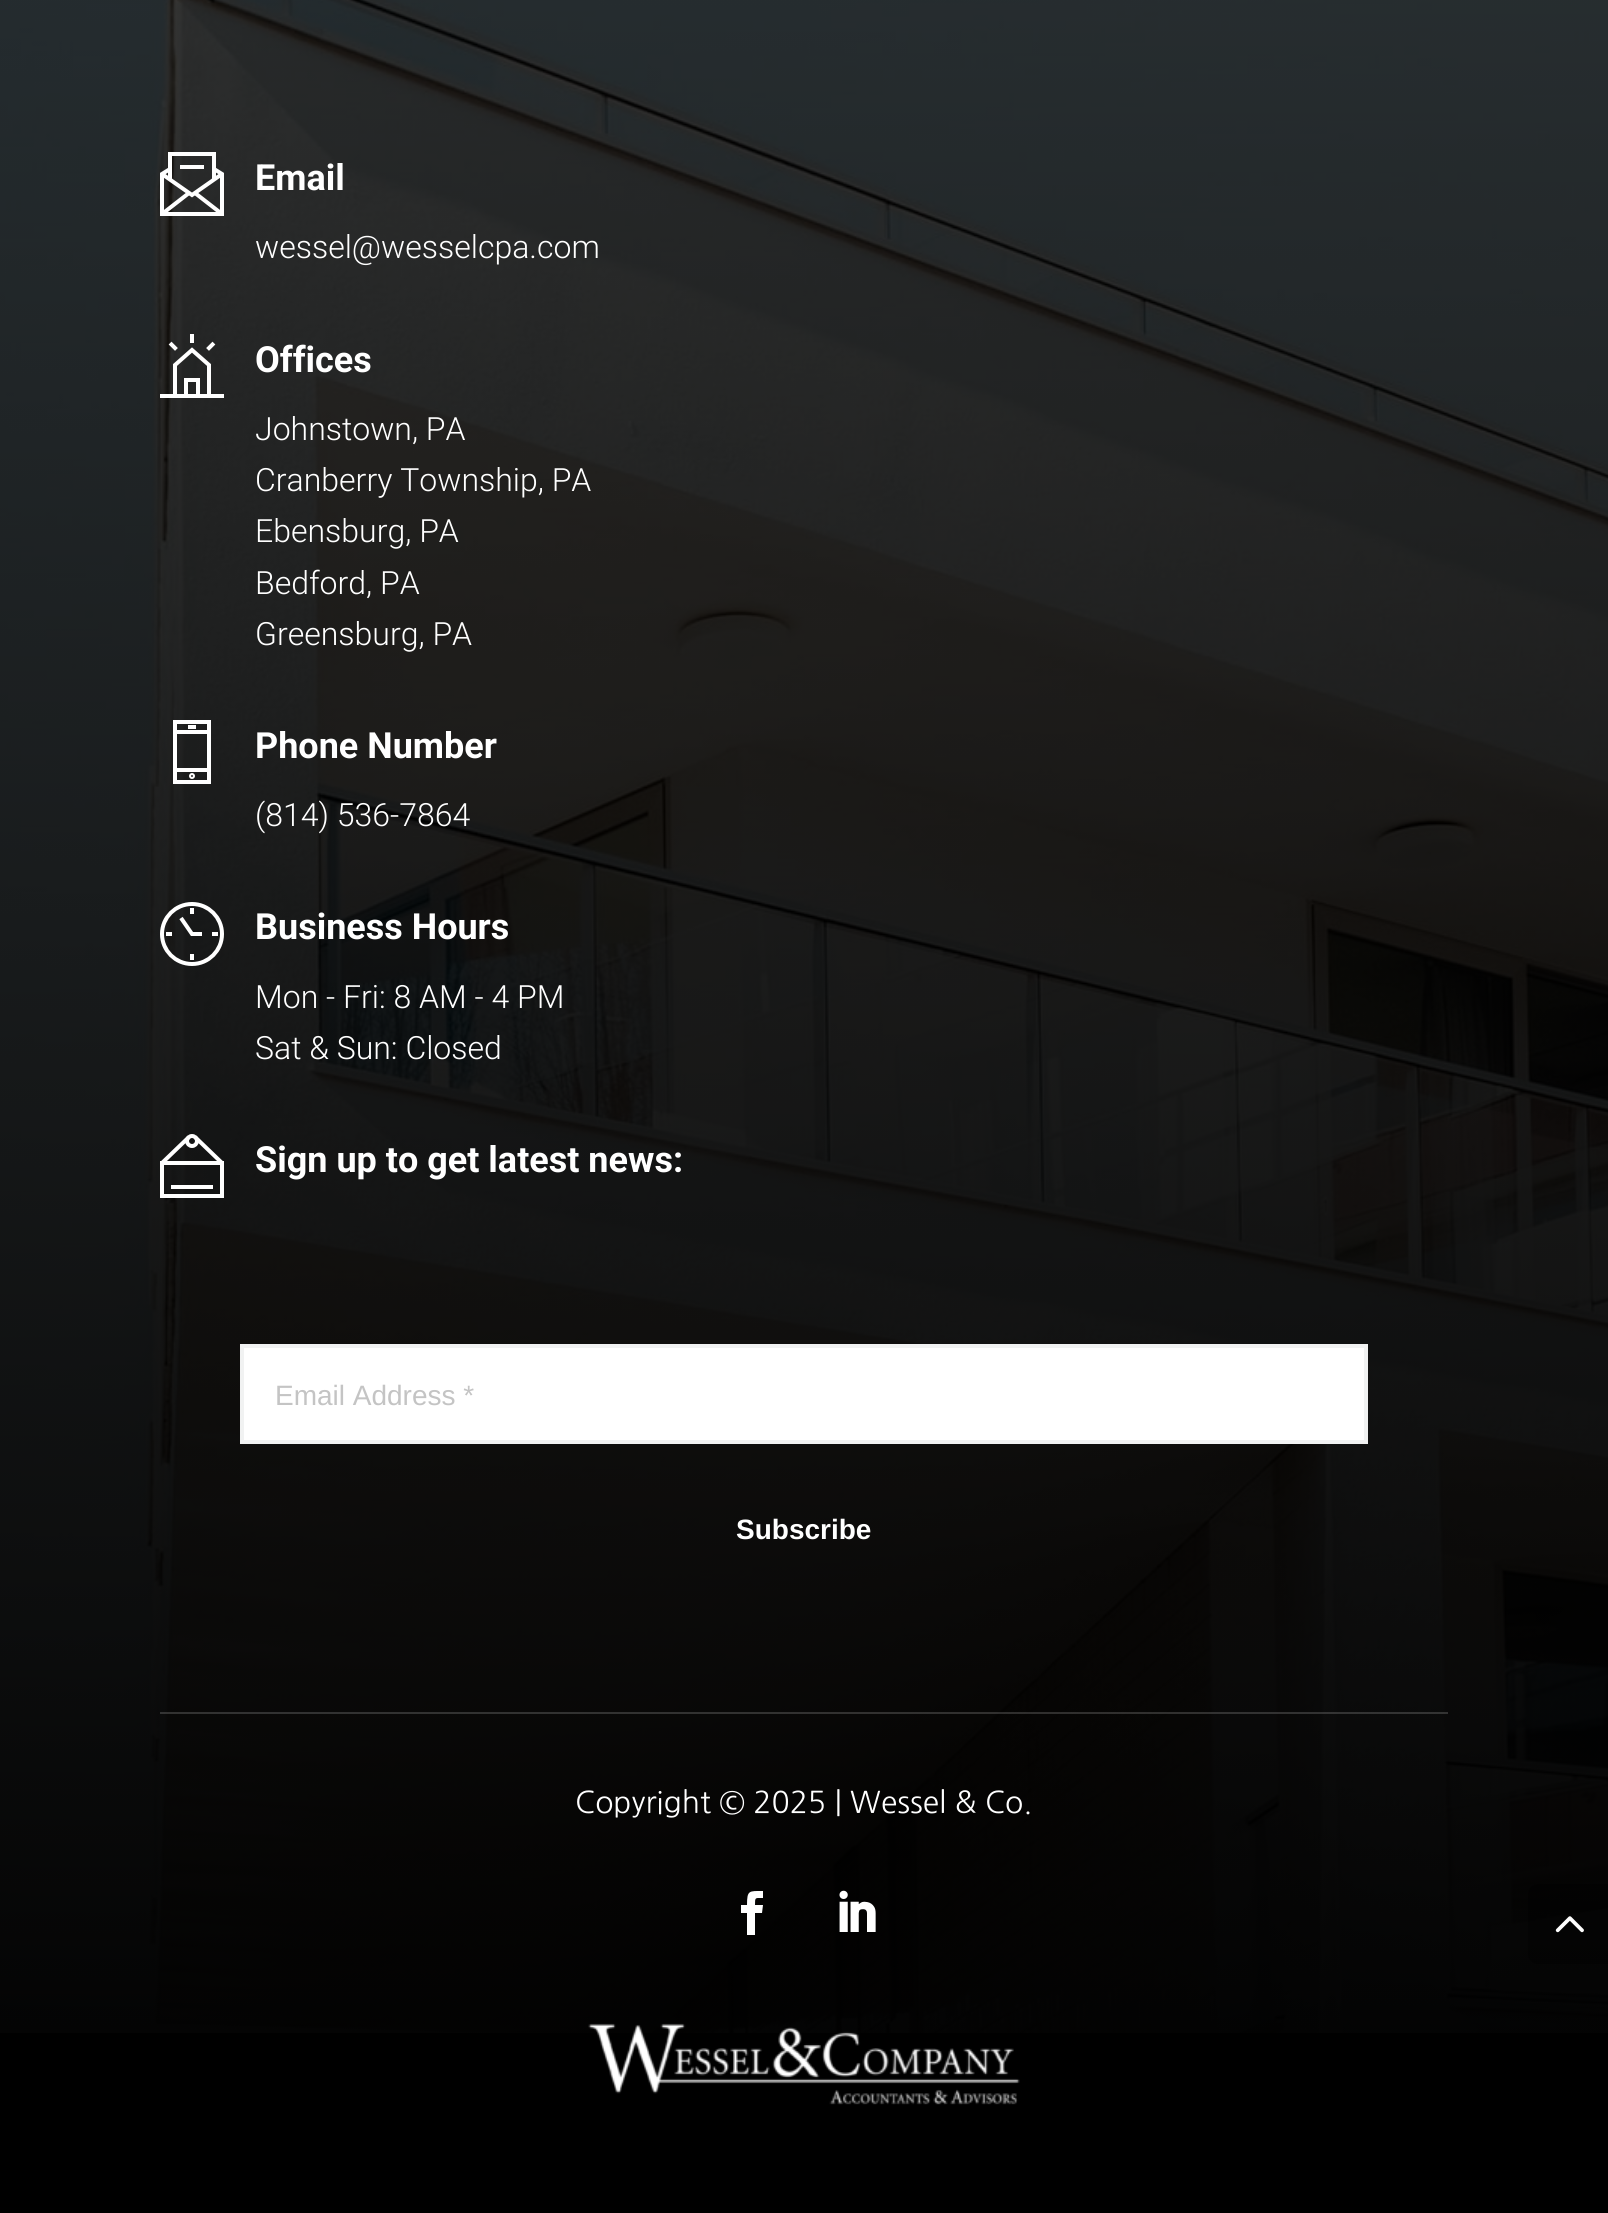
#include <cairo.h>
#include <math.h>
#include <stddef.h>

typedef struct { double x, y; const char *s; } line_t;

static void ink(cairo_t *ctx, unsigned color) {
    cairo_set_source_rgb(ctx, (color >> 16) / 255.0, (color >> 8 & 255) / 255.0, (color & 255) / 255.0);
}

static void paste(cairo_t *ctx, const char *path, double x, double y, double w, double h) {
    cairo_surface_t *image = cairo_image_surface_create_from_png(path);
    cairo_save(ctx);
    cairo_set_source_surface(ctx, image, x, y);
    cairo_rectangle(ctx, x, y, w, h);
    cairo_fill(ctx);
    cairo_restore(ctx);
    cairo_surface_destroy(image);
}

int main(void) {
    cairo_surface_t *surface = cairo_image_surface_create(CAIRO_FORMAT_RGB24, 1608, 2213);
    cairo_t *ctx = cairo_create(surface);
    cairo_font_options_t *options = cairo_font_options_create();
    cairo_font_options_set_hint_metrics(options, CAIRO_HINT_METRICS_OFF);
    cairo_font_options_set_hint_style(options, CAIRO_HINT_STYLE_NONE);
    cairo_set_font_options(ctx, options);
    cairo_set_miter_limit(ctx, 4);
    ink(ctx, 0x000000);
    cairo_paint(ctx);
    paste(ctx, "media/1.png", 0, 0, 1608, 2033);
    paste(ctx, "media/2.png", 160, 152, 64, 64);
    cairo_select_font_face(ctx, "Roboto", CAIRO_FONT_SLANT_NORMAL, CAIRO_FONT_WEIGHT_BOLD);
    cairo_set_font_size(ctx, 36);
    ink(ctx, 0xFFFFFF);
    cairo_move_to(ctx, 255, 190);
    cairo_show_text(ctx, "Email");
    cairo_select_font_face(ctx, "Roboto Light", CAIRO_FONT_SLANT_NORMAL, CAIRO_FONT_WEIGHT_NORMAL);
    cairo_set_font_size(ctx, 32);
    cairo_move_to(ctx, 255, 258);
    cairo_show_text(ctx, "wessel@wesselcpa.com");
    paste(ctx, "media/3.png", 160, 334, 64, 64);
    cairo_select_font_face(ctx, "Roboto", CAIRO_FONT_SLANT_NORMAL, CAIRO_FONT_WEIGHT_BOLD);
    cairo_set_font_size(ctx, 36);
    cairo_move_to(ctx, 255, 372);
    cairo_show_text(ctx, "Offices");
    cairo_select_font_face(ctx, "Roboto Light", CAIRO_FONT_SLANT_NORMAL, CAIRO_FONT_WEIGHT_NORMAL);
    cairo_set_font_size(ctx, 32);
    {
        static const line_t items[] = {
            {255, 440, "Johnstown, PA"},
            {255, 491, "Cranberry Township, PA"},
            {255, 542, "Ebensburg, PA"},
            {255, 594, "Bedford, PA"},
            {255, 645, "Greensburg, PA"},
        };
        for (size_t i = 0; i < sizeof items / sizeof *items; i++) {
            cairo_move_to(ctx, items[i].x, items[i].y);
            cairo_show_text(ctx, items[i].s);
        }
    }
    paste(ctx, "media/4.png", 173, 720, 38, 64);
    cairo_select_font_face(ctx, "Roboto", CAIRO_FONT_SLANT_NORMAL, CAIRO_FONT_WEIGHT_BOLD);
    cairo_set_font_size(ctx, 36);
    cairo_move_to(ctx, 255, 758);
    cairo_show_text(ctx, "Phone Number");
    cairo_select_font_face(ctx, "Roboto Light", CAIRO_FONT_SLANT_NORMAL, CAIRO_FONT_WEIGHT_NORMAL);
    cairo_set_font_size(ctx, 32);
    cairo_move_to(ctx, 255, 826);
    cairo_show_text(ctx, "(814) 536-7864");
    paste(ctx, "media/5.png", 160, 902, 64, 64);
    cairo_select_font_face(ctx, "Roboto", CAIRO_FONT_SLANT_NORMAL, CAIRO_FONT_WEIGHT_BOLD);
    cairo_set_font_size(ctx, 36);
    cairo_move_to(ctx, 255, 939);
    cairo_show_text(ctx, "Business Hours");
    cairo_select_font_face(ctx, "Roboto Light", CAIRO_FONT_SLANT_NORMAL, CAIRO_FONT_WEIGHT_NORMAL);
    cairo_set_font_size(ctx, 32);
    cairo_move_to(ctx, 255, 1008);
    cairo_show_text(ctx, "Mon - Fri: 8 AM - 4 PM");
    cairo_move_to(ctx, 255, 1059);
    cairo_show_text(ctx, "Sat & Sun: Closed");
    paste(ctx, "media/6.png", 160, 1134, 64, 64);
    cairo_select_font_face(ctx, "Roboto", CAIRO_FONT_SLANT_NORMAL, CAIRO_FONT_WEIGHT_BOLD);
    cairo_set_font_size(ctx, 36);
    cairo_move_to(ctx, 255, 1172);
    cairo_show_text(ctx, "Sign up to get latest news:");
    cairo_rectangle(ctx, 242, 1346, 1124, 96);
    cairo_fill_preserve(ctx);
    ink(ctx, 0xF1F2F2);
    cairo_set_line_width(ctx, 4);
    cairo_stroke(ctx);
    cairo_select_font_face(ctx, "Liberation Sans", CAIRO_FONT_SLANT_NORMAL, CAIRO_FONT_WEIGHT_NORMAL);
    cairo_set_font_size(ctx, 28);
    ink(ctx, 0xC4C4C4);
    cairo_move_to(ctx, 275, 1405);
    cairo_show_text(ctx, "Email Address *");
    cairo_select_font_face(ctx, "Liberation Sans", CAIRO_FONT_SLANT_NORMAL, CAIRO_FONT_WEIGHT_BOLD);
    ink(ctx, 0xFFFFFF);
    cairo_move_to(ctx, 736, 1539);
    cairo_show_text(ctx, "Subscribe");
    cairo_set_source_rgba(ctx, 1, 1, 1, 0.17);
    cairo_rectangle(ctx, 160, 1712, 1288, 2);
    cairo_fill(ctx);
    cairo_select_font_face(ctx, "NanumGothic", CAIRO_FONT_SLANT_NORMAL, CAIRO_FONT_WEIGHT_NORMAL);
    cairo_set_font_size(ctx, 30);
    ink(ctx, 0xFFFFFF);
    cairo_move_to(ctx, 575, 1813);
    cairo_show_text(ctx, "Copyright © 2025 | Wessel & Co.");
    cairo_new_path(ctx);
    cairo_move_to(ctx, 747, 1935);
    cairo_line_to(ctx, 755, 1935);
    cairo_line_to(ctx, 755, 1913);
    cairo_line_to(ctx, 762, 1913);
    cairo_line_to(ctx, 763, 1905);
    cairo_line_to(ctx, 755, 1905);
    cairo_curve_to(ctx, 755, 1897, 755, 1898, 763, 1898);
    cairo_line_to(ctx, 763, 1891);
    cairo_curve_to(ctx, 749, 1891, 747, 1890, 747, 1905);
    cairo_line_to(ctx, 741, 1905);
    cairo_line_to(ctx, 741, 1913);
    cairo_line_to(ctx, 747, 1913);
    cairo_close_path(ctx);
    cairo_fill(ctx);
    paste(ctx, "media/7.png", 839, 1890, 37, 42);
    paste(ctx, "media/8.png", 588, 2023, 432, 82);
    cairo_set_source_rgba(ctx, 0, 0, 0, 0.4);
    cairo_new_path(ctx);
    cairo_move_to(ctx, 1538, 1884);
    cairo_line_to(ctx, 1608, 1884);
    cairo_line_to(ctx, 1608, 1964);
    cairo_line_to(ctx, 1538, 1964);
    cairo_curve_to(ctx, 1532.5, 1964, 1528, 1959.5, 1528, 1954);
    cairo_line_to(ctx, 1528, 1894);
    cairo_curve_to(ctx, 1528, 1888.5, 1532.5, 1884, 1538, 1884);
    cairo_close_path(ctx);
    cairo_fill(ctx);
    paste(ctx, "media/9.png", 1555, 1916, 29, 17);
    cairo_surface_write_to_png(surface, "image.png");
    cairo_font_options_destroy(options);
    cairo_destroy(ctx);
    cairo_surface_destroy(surface);
    return 0;
}
